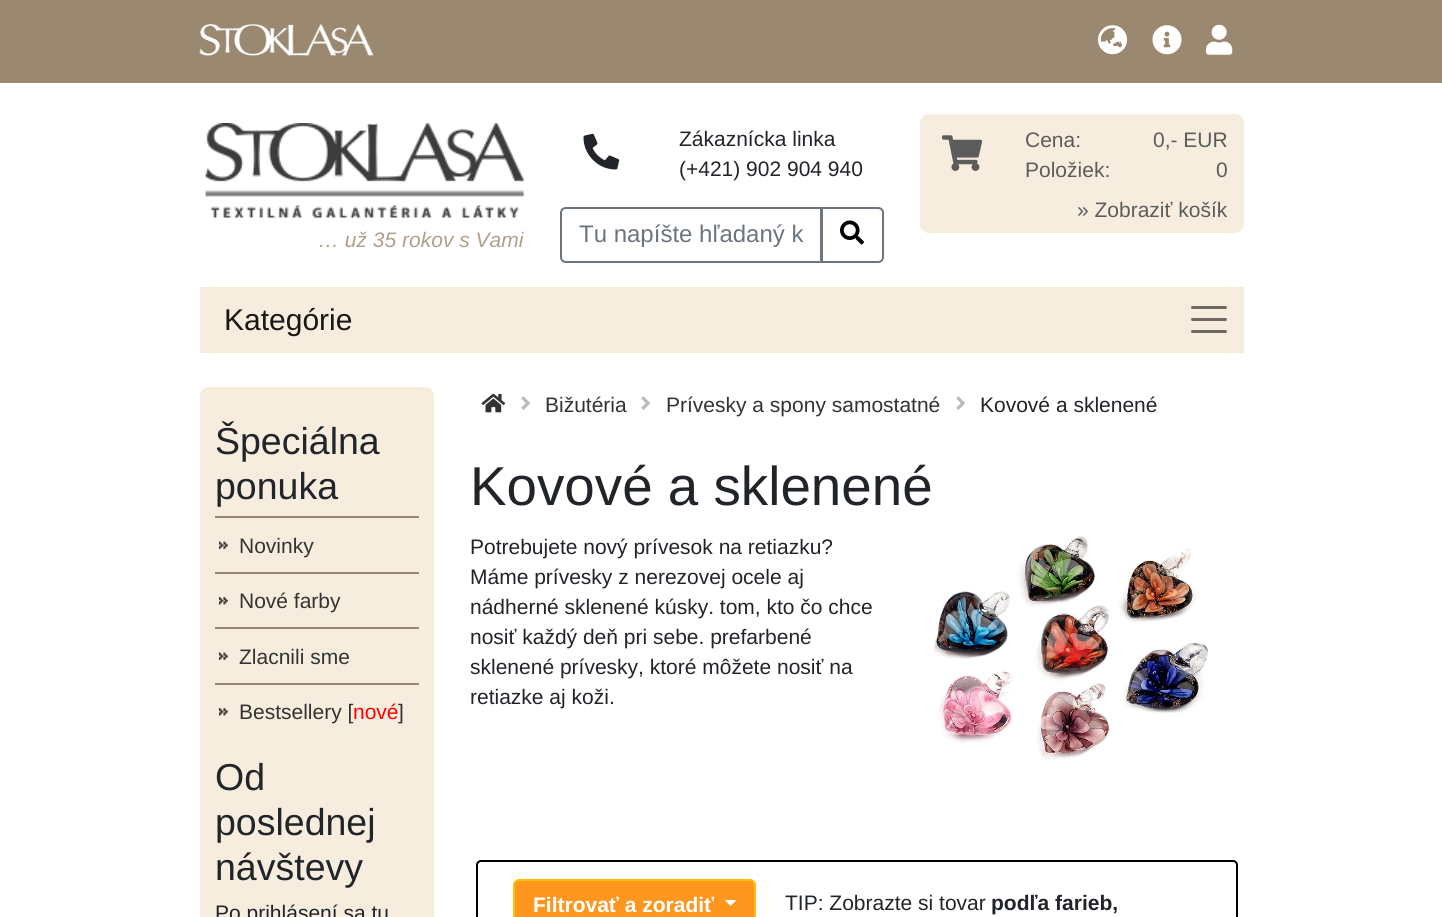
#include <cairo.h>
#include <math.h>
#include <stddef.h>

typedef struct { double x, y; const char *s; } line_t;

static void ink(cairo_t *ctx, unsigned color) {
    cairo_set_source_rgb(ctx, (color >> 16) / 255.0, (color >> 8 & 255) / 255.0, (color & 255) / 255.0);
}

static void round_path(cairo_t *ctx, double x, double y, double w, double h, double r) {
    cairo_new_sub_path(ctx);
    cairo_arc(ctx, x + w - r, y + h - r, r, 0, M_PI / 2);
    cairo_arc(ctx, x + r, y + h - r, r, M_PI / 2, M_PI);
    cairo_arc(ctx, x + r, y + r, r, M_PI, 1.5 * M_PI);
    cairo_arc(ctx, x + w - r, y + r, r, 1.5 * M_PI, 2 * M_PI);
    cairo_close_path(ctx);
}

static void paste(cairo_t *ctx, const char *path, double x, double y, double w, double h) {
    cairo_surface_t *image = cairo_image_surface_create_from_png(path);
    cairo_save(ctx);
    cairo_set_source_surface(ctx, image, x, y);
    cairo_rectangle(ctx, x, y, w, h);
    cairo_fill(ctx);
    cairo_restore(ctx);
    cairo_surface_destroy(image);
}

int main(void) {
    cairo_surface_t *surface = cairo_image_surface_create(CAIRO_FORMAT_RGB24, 1442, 917);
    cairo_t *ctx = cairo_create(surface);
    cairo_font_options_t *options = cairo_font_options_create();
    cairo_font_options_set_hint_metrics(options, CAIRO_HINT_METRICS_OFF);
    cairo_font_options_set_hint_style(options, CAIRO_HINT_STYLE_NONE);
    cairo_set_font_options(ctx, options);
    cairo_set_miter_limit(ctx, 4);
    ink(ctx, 0xFFFFFF);
    cairo_paint(ctx);
    ink(ctx, 0x9A8870);
    cairo_rectangle(ctx, 0, 0, 1442, 83);
    cairo_fill(ctx);
    paste(ctx, "media/1.png", 199, 24, 175, 32);
    paste(ctx, "media/2.png", 1098, 25, 30, 30);
    paste(ctx, "media/3.png", 1152, 25, 30, 30);
    paste(ctx, "media/4.png", 1206, 24, 27, 31);
    paste(ctx, "media/5.png", 583, 133, 37, 37);
    cairo_select_font_face(ctx, "Liberation Sans", CAIRO_FONT_SLANT_NORMAL, CAIRO_FONT_WEIGHT_NORMAL);
    cairo_set_font_size(ctx, 21);
    ink(ctx, 0x212529);
    cairo_move_to(ctx, 679, 146);
    cairo_show_text(ctx, "Zákaznícka linka");
    cairo_move_to(ctx, 679, 176);
    cairo_show_text(ctx, "(+421) 902 904 940");
    cairo_new_path(ctx);
    cairo_move_to(ctx, 566, 208);
    cairo_line_to(ctx, 821, 208);
    cairo_line_to(ctx, 821, 262);
    cairo_line_to(ctx, 566, 262);
    cairo_curve_to(ctx, 563, 262, 561, 260, 561, 257);
    cairo_line_to(ctx, 561, 213);
    cairo_curve_to(ctx, 561, 210, 563, 208, 566, 208);
    cairo_close_path(ctx);
    ink(ctx, 0x6C757D);
    cairo_stroke(ctx);
    cairo_set_font_size(ctx, 24);
    cairo_move_to(ctx, 579, 242);
    cairo_show_text(ctx, "Tu napíšte hľadaný k");
    ink(ctx, 0xFFFFFF);
    cairo_new_path(ctx);
    cairo_move_to(ctx, 822, 208);
    cairo_line_to(ctx, 878, 208);
    cairo_curve_to(ctx, 881, 208, 883, 210, 883, 213);
    cairo_line_to(ctx, 883, 257);
    cairo_curve_to(ctx, 883, 260, 881, 262, 878, 262);
    cairo_line_to(ctx, 822, 262);
    cairo_close_path(ctx);
    cairo_fill_preserve(ctx);
    ink(ctx, 0x6C757D);
    cairo_stroke(ctx);
    paste(ctx, "media/6.png", 840, 220, 24, 25);
    ink(ctx, 0xF7EDDE);
    round_path(ctx, 920, 114, 324, 119, 9);
    cairo_fill(ctx);
    paste(ctx, "media/7.png", 942, 135, 41, 36);
    cairo_set_font_size(ctx, 21);
    ink(ctx, 0x5C5C5C);
    {
        static const line_t items[] = {
            {1025, 147, "Cena:"},
            {1025, 177, "Položiek:"},
            {1153, 147, "0,- EUR"},
            {1216, 177, "0"},
            {1077, 217, "» Zobraziť košík"},
        };
        for (size_t i = 0; i < sizeof items / sizeof *items; i++) {
            cairo_move_to(ctx, items[i].x, items[i].y);
            cairo_show_text(ctx, items[i].s);
        }
    }
    paste(ctx, "media/8.png", 205, 123, 320, 95);
    cairo_select_font_face(ctx, "Liberation Sans", CAIRO_FONT_SLANT_ITALIC, CAIRO_FONT_WEIGHT_NORMAL);
    ink(ctx, 0xAEA08D);
    cairo_move_to(ctx, 318, 247);
    cairo_show_text(ctx, "… už 35 rokov s Vami");
    ink(ctx, 0xF7EDDE);
    cairo_rectangle(ctx, 200, 287, 1044, 66);
    cairo_fill(ctx);
    cairo_select_font_face(ctx, "Liberation Sans", CAIRO_FONT_SLANT_NORMAL, CAIRO_FONT_WEIGHT_NORMAL);
    cairo_set_font_size(ctx, 30);
    ink(ctx, 0x191816);
    cairo_move_to(ctx, 224, 330);
    cairo_show_text(ctx, "Kategórie");
    cairo_new_path(ctx);
    cairo_move_to(ctx, 1192.5, 307.5);
    cairo_line_to(ctx, 1225.5, 307.5);
    cairo_move_to(ctx, 1192.5, 319.5);
    cairo_line_to(ctx, 1225.5, 319.5);
    cairo_move_to(ctx, 1192.5, 331.5);
    cairo_line_to(ctx, 1225.5, 331.5);
    ink(ctx, 0x6F6B64);
    cairo_set_line_width(ctx, 3);
    cairo_set_line_cap(ctx, CAIRO_LINE_CAP_ROUND);
    cairo_stroke(ctx);
    ink(ctx, 0xF7EDDE);
    round_path(ctx, 200, 387, 234, 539, 9);
    cairo_fill(ctx);
    cairo_set_font_size(ctx, 37.5);
    ink(ctx, 0x212529);
    cairo_move_to(ctx, 215, 454);
    cairo_show_text(ctx, "Špeciálna");
    cairo_move_to(ctx, 215, 499);
    cairo_show_text(ctx, "ponuka");
    paste(ctx, "media/9.png", 219, 541, 9, 8);
    ink(ctx, 0x9A8870);
    cairo_rectangle(ctx, 215, 516, 204, 2);
    cairo_fill(ctx);
    cairo_set_font_size(ctx, 21);
    ink(ctx, 0x333333);
    cairo_move_to(ctx, 239, 553);
    cairo_show_text(ctx, "Novinky");
    paste(ctx, "media/10.png", 219, 597, 9, 8);
    ink(ctx, 0x9A8870);
    cairo_rectangle(ctx, 215, 572, 204, 2);
    cairo_fill(ctx);
    ink(ctx, 0x333333);
    cairo_move_to(ctx, 239, 608);
    cairo_show_text(ctx, "Nové farby");
    paste(ctx, "media/9.png", 219, 652, 9, 8);
    ink(ctx, 0x9A8870);
    cairo_rectangle(ctx, 215, 627, 204, 2);
    cairo_fill(ctx);
    ink(ctx, 0x333333);
    cairo_move_to(ctx, 239, 664);
    cairo_show_text(ctx, "Zlacnili sme");
    paste(ctx, "media/10.png", 219, 708, 9, 8);
    ink(ctx, 0x9A8870);
    cairo_rectangle(ctx, 215, 683, 204, 2);
    cairo_fill(ctx);
    ink(ctx, 0x333333);
    cairo_move_to(ctx, 239, 719);
    cairo_show_text(ctx, "Bestsellery [");
    ink(ctx, 0xFF0000);
    cairo_move_to(ctx, 353, 719);
    cairo_show_text(ctx, "nové");
    ink(ctx, 0x333333);
    cairo_move_to(ctx, 398, 719);
    cairo_show_text(ctx, "]");
    cairo_set_font_size(ctx, 37.5);
    ink(ctx, 0x212529);
    {
        static const line_t items[] = {
            {215, 790, "Od"},
            {215, 835, "poslednej"},
            {215, 880, "návštevy"},
        };
        for (size_t i = 0; i < sizeof items / sizeof *items; i++) {
            cairo_move_to(ctx, items[i].x, items[i].y);
            cairo_show_text(ctx, items[i].s);
        }
    }
    cairo_set_font_size(ctx, 21);
    cairo_move_to(ctx, 215, 920);
    cairo_show_text(ctx, "Po prihlásení sa tu");
    paste(ctx, "media/11.png", 481, 393, 25, 20);
    paste(ctx, "media/12.png", 521, 396, 9, 14);
    ink(ctx, 0x333333);
    cairo_move_to(ctx, 545, 412);
    cairo_show_text(ctx, "Bižutéria");
    paste(ctx, "media/12.png", 641, 396, 9, 14);
    cairo_move_to(ctx, 666, 412);
    cairo_show_text(ctx, "Prívesky a spony samostatné");
    paste(ctx, "media/12.png", 956, 396, 9, 14);
    ink(ctx, 0x212529);
    cairo_move_to(ctx, 980, 412);
    cairo_show_text(ctx, "Kovové a sklenené");
    cairo_set_font_size(ctx, 54.75);
    cairo_move_to(ctx, 470, 505);
    cairo_show_text(ctx, "Kovové a sklenené");
    cairo_set_font_size(ctx, 21);
    {
        static const line_t items[] = {
            {470, 554, "Potrebujete nový prívesok na retiazku?"},
            {470, 584, "Máme prívesky z nerezovej ocele aj"},
            {470, 614, "nádherné sklenené kúsky. tom, kto čo chce"},
            {470, 644, "nosiť každý deň pri sebe. prefarbené"},
            {470, 674, "sklenené prívesky, ktoré môžete nosiť na"},
            {470, 704, "retiazke aj koži."},
        };
        for (size_t i = 0; i < sizeof items / sizeof *items; i++) {
            cairo_move_to(ctx, items[i].x, items[i].y);
            cairo_show_text(ctx, items[i].s);
        }
    }
    paste(ctx, "media/13.png", 934, 536, 275, 225);
    round_path(ctx, 477, 861, 760, 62, 4);
    ink(ctx, 0x000000);
    cairo_set_line_width(ctx, 2);
    cairo_set_line_cap(ctx, CAIRO_LINE_CAP_BUTT);
    cairo_stroke(ctx);
    ink(ctx, 0xFF971F);
    round_path(ctx, 514, 880, 241, 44, 5);
    cairo_fill_preserve(ctx);
    ink(ctx, 0xFFC107);
    cairo_stroke(ctx);
    cairo_select_font_face(ctx, "Liberation Sans", CAIRO_FONT_SLANT_NORMAL, CAIRO_FONT_WEIGHT_BOLD);
    ink(ctx, 0xFFFFFF);
    cairo_move_to(ctx, 533, 912);
    cairo_show_text(ctx, "Filtrovať a zoradiť");
    cairo_new_path(ctx);
    cairo_move_to(ctx, 724.5, 900);
    cairo_line_to(ctx, 736.5, 900);
    cairo_line_to(ctx, 730.5, 906);
    cairo_close_path(ctx);
    cairo_fill(ctx);
    cairo_select_font_face(ctx, "Liberation Sans", CAIRO_FONT_SLANT_NORMAL, CAIRO_FONT_WEIGHT_NORMAL);
    ink(ctx, 0x212529);
    cairo_move_to(ctx, 785, 910);
    cairo_show_text(ctx, "TIP: Zobrazte si tovar");
    cairo_select_font_face(ctx, "Liberation Sans", CAIRO_FONT_SLANT_NORMAL, CAIRO_FONT_WEIGHT_BOLD);
    cairo_move_to(ctx, 991, 910);
    cairo_show_text(ctx, "podľa farieb,");
    cairo_surface_write_to_png(surface, "image.png");
    cairo_font_options_destroy(options);
    cairo_destroy(ctx);
    cairo_surface_destroy(surface);
    return 0;
}
